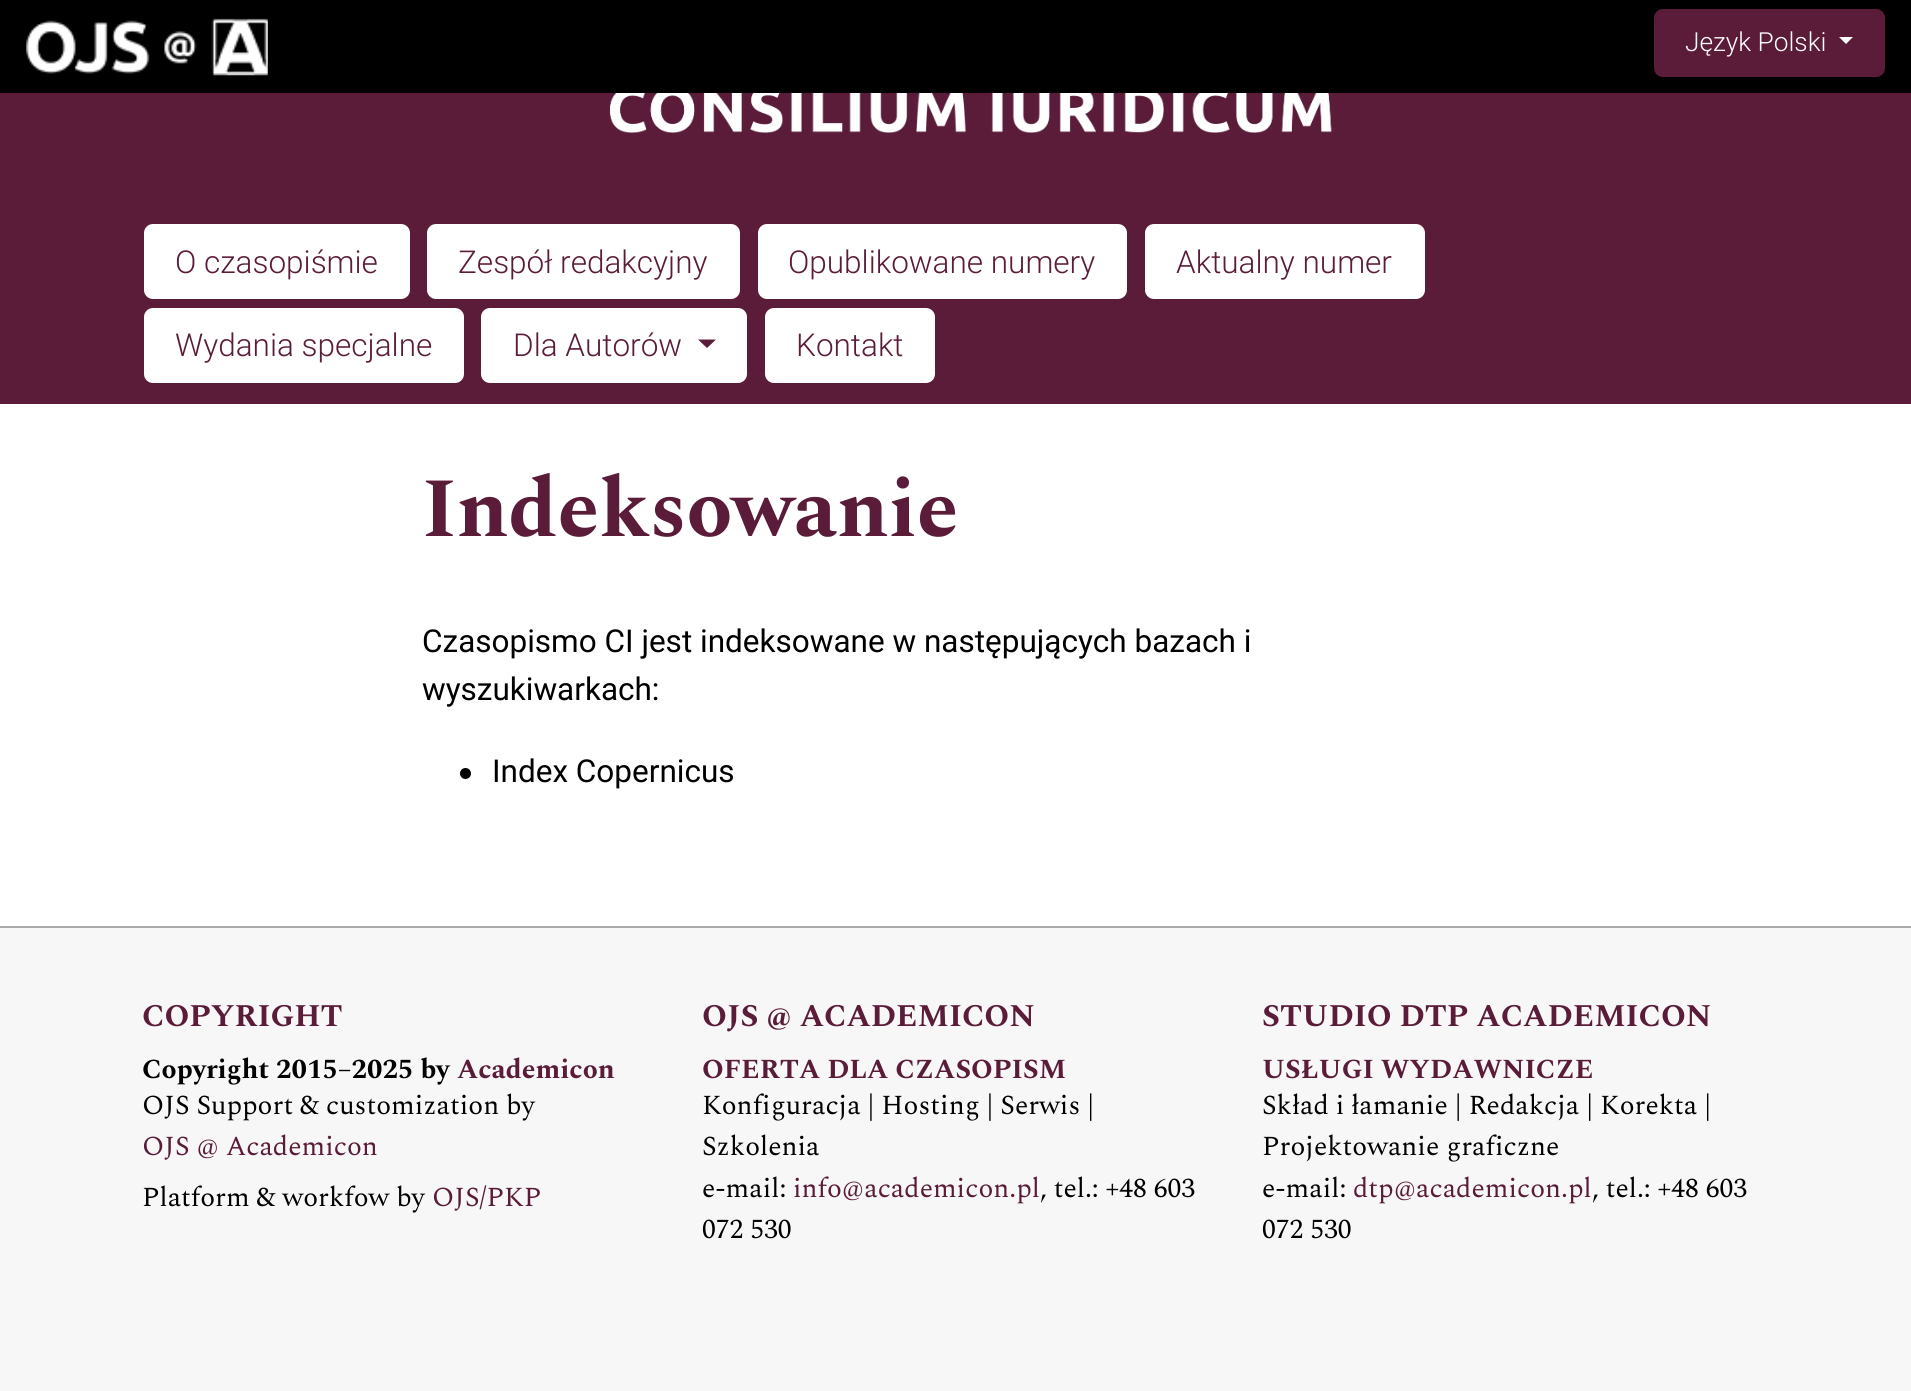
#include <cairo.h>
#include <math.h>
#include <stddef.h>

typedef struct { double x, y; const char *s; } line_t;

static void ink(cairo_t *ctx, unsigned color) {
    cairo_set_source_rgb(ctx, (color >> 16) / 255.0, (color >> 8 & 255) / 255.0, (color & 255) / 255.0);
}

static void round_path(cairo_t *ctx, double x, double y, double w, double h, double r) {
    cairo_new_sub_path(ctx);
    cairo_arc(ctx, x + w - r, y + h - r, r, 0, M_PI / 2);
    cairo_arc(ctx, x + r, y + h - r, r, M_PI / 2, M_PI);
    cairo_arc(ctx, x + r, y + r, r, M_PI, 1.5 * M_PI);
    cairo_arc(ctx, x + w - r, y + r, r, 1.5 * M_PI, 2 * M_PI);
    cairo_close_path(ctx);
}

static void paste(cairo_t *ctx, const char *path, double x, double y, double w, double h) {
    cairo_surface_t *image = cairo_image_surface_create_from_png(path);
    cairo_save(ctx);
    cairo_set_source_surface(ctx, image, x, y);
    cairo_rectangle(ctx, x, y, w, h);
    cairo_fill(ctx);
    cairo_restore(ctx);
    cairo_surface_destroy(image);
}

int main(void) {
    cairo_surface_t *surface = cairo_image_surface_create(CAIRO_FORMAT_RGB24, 1911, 1391);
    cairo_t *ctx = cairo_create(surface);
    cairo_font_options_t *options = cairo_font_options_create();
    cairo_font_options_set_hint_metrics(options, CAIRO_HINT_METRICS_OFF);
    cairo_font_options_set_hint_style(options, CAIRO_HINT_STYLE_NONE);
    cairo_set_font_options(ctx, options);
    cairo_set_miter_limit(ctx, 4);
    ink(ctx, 0xFFFFFF);
    cairo_paint(ctx);
    ink(ctx, 0x5B1C3A);
    cairo_rectangle(ctx, 0, 93, 1911, 311);
    cairo_fill(ctx);
    ink(ctx, 0x000000);
    cairo_rectangle(ctx, 0, 0, 1911, 93);
    cairo_fill(ctx);
    paste(ctx, "media/1.png", 26, 18, 242, 58);
    ink(ctx, 0x5B1C3A);
    round_path(ctx, 1654, 9, 231, 68, 9);
    cairo_fill(ctx);
    cairo_select_font_face(ctx, "Roboto Light", CAIRO_FONT_SLANT_NORMAL, CAIRO_FONT_WEIGHT_NORMAL);
    cairo_set_font_size(ctx, 26.25);
    ink(ctx, 0xFFFFFF);
    cairo_move_to(ctx, 1685, 51);
    cairo_show_text(ctx, "Język Polski");
    cairo_new_path(ctx);
    cairo_move_to(ctx, 1839, 37);
    cairo_line_to(ctx, 1853, 37);
    cairo_line_to(ctx, 1846, 44);
    cairo_close_path(ctx);
    cairo_fill(ctx);
    paste(ctx, "media/2.png", 610, 93, 722, 40);
    round_path(ctx, 144, 224, 266, 75, 9);
    cairo_fill(ctx);
    cairo_set_font_size(ctx, 31.5);
    ink(ctx, 0x5B1C3A);
    cairo_move_to(ctx, 175, 273);
    cairo_show_text(ctx, "O czasopiśmie");
    ink(ctx, 0xFFFFFF);
    round_path(ctx, 427, 224, 313, 75, 9);
    cairo_fill(ctx);
    ink(ctx, 0x5B1C3A);
    cairo_move_to(ctx, 458, 273);
    cairo_show_text(ctx, "Zespół redakcyjny");
    ink(ctx, 0xFFFFFF);
    round_path(ctx, 758, 224, 369, 75, 9);
    cairo_fill(ctx);
    ink(ctx, 0x5B1C3A);
    cairo_move_to(ctx, 788, 273);
    cairo_show_text(ctx, "Opublikowane numery");
    ink(ctx, 0xFFFFFF);
    round_path(ctx, 1145, 224, 280, 75, 9);
    cairo_fill(ctx);
    ink(ctx, 0x5B1C3A);
    cairo_move_to(ctx, 1176, 273);
    cairo_show_text(ctx, "Aktualny numer");
    ink(ctx, 0xFFFFFF);
    round_path(ctx, 144, 308, 320, 75, 9);
    cairo_fill(ctx);
    ink(ctx, 0x5B1C3A);
    cairo_move_to(ctx, 175, 356);
    cairo_show_text(ctx, "Wydania specjalne");
    ink(ctx, 0xFFFFFF);
    round_path(ctx, 481, 308, 266, 75, 9);
    cairo_fill(ctx);
    ink(ctx, 0x5B1C3A);
    cairo_move_to(ctx, 513, 356);
    cairo_show_text(ctx, "Dla Autorów");
    cairo_new_path(ctx);
    cairo_move_to(ctx, 698, 339.5);
    cairo_line_to(ctx, 716, 339.5);
    cairo_line_to(ctx, 707, 348);
    cairo_close_path(ctx);
    cairo_fill(ctx);
    ink(ctx, 0xFFFFFF);
    round_path(ctx, 765, 308, 170, 75, 9);
    cairo_fill(ctx);
    ink(ctx, 0x5B1C3A);
    cairo_move_to(ctx, 796, 356);
    cairo_show_text(ctx, "Kontakt");
    cairo_select_font_face(ctx, "Spectral", CAIRO_FONT_SLANT_NORMAL, CAIRO_FONT_WEIGHT_BOLD);
    cairo_set_font_size(ctx, 84);
    cairo_move_to(ctx, 422, 536);
    cairo_show_text(ctx, "Indeksowanie");
    cairo_select_font_face(ctx, "Roboto", CAIRO_FONT_SLANT_NORMAL, CAIRO_FONT_WEIGHT_NORMAL);
    cairo_set_font_size(ctx, 31.5);
    ink(ctx, 0x000000);
    cairo_move_to(ctx, 422, 652);
    cairo_show_text(ctx, "Czasopismo CI jest indeksowane w następujących bazach i");
    cairo_move_to(ctx, 422, 700);
    cairo_show_text(ctx, "wyszukiwarkach:");
    cairo_new_path(ctx);
    cairo_arc(ctx, 465.5, 773.5, 5.5, 0, 2 * M_PI);
    cairo_fill(ctx);
    cairo_move_to(ctx, 492, 782);
    cairo_show_text(ctx, "Index Copernicus");
    ink(ctx, 0xF7F7F7);
    cairo_rectangle(ctx, 0, 928, 1911, 463);
    cairo_fill(ctx);
    ink(ctx, 0xA9A9A9);
    cairo_rectangle(ctx, 0, 926, 1911, 2);
    cairo_fill(ctx);
    cairo_select_font_face(ctx, "Spectral", CAIRO_FONT_SLANT_NORMAL, CAIRO_FONT_WEIGHT_BOLD);
    ink(ctx, 0x5B1C3A);
    cairo_move_to(ctx, 142, 1026);
    cairo_show_text(ctx, "COPYRIGHT");
    cairo_set_font_size(ctx, 27.5);
    ink(ctx, 0x000000);
    cairo_move_to(ctx, 142, 1078);
    cairo_show_text(ctx, "Copyright 2015–2025 by");
    ink(ctx, 0x5B1C3A);
    cairo_move_to(ctx, 457, 1078);
    cairo_show_text(ctx, "Academicon");
    cairo_select_font_face(ctx, "Spectral", CAIRO_FONT_SLANT_NORMAL, CAIRO_FONT_WEIGHT_NORMAL);
    ink(ctx, 0x000000);
    cairo_move_to(ctx, 142, 1114);
    cairo_show_text(ctx, "OJS Support & customization by");
    ink(ctx, 0x5B1C3A);
    cairo_move_to(ctx, 142, 1155);
    cairo_show_text(ctx, "OJS @ Academicon");
    ink(ctx, 0x000000);
    cairo_move_to(ctx, 142, 1206);
    cairo_show_text(ctx, "Platform & workfow by");
    ink(ctx, 0x5B1C3A);
    cairo_move_to(ctx, 432, 1206);
    cairo_show_text(ctx, "OJS/PKP");
    cairo_select_font_face(ctx, "Spectral", CAIRO_FONT_SLANT_NORMAL, CAIRO_FONT_WEIGHT_BOLD);
    cairo_set_font_size(ctx, 31.5);
    cairo_move_to(ctx, 702, 1026);
    cairo_show_text(ctx, "OJS @ ACADEMICON");
    cairo_set_font_size(ctx, 27.5);
    cairo_move_to(ctx, 702, 1078);
    cairo_show_text(ctx, "OFERTA DLA CZASOPISM");
    cairo_select_font_face(ctx, "Spectral", CAIRO_FONT_SLANT_NORMAL, CAIRO_FONT_WEIGHT_NORMAL);
    ink(ctx, 0x000000);
    {
        static const line_t items[] = {
            {702, 1114, "Konfiguracja | Hosting | Serwis |"},
            {702, 1155, "Szkolenia"},
            {702, 1197, "e-mail:"},
        };
        for (size_t i = 0; i < sizeof items / sizeof *items; i++) {
            cairo_move_to(ctx, items[i].x, items[i].y);
            cairo_show_text(ctx, items[i].s);
        }
    }
    ink(ctx, 0x5B1C3A);
    cairo_move_to(ctx, 793, 1197);
    cairo_show_text(ctx, "info@academicon.pl");
    ink(ctx, 0x000000);
    cairo_move_to(ctx, 1040, 1197);
    cairo_show_text(ctx, ", tel.: +48 603");
    cairo_move_to(ctx, 702, 1238);
    cairo_show_text(ctx, "072 530");
    cairo_select_font_face(ctx, "Spectral", CAIRO_FONT_SLANT_NORMAL, CAIRO_FONT_WEIGHT_BOLD);
    cairo_set_font_size(ctx, 31.5);
    ink(ctx, 0x5B1C3A);
    cairo_move_to(ctx, 1262, 1026);
    cairo_show_text(ctx, "STUDIO DTP ACADEMICON");
    cairo_set_font_size(ctx, 27.5);
    cairo_move_to(ctx, 1262, 1078);
    cairo_show_text(ctx, "USŁUGI WYDAWNICZE");
    cairo_select_font_face(ctx, "Spectral", CAIRO_FONT_SLANT_NORMAL, CAIRO_FONT_WEIGHT_NORMAL);
    ink(ctx, 0x000000);
    {
        static const line_t items[] = {
            {1262, 1114, "Skład i łamanie | Redakcja | Korekta |"},
            {1262, 1155, "Projektowanie graficzne"},
            {1262, 1197, "e-mail:"},
        };
        for (size_t i = 0; i < sizeof items / sizeof *items; i++) {
            cairo_move_to(ctx, items[i].x, items[i].y);
            cairo_show_text(ctx, items[i].s);
        }
    }
    ink(ctx, 0x5B1C3A);
    cairo_move_to(ctx, 1353, 1197);
    cairo_show_text(ctx, "dtp@academicon.pl");
    ink(ctx, 0x000000);
    cairo_move_to(ctx, 1592, 1197);
    cairo_show_text(ctx, ", tel.: +48 603");
    cairo_move_to(ctx, 1262, 1238);
    cairo_show_text(ctx, "072 530");
    cairo_surface_write_to_png(surface, "image.png");
    cairo_font_options_destroy(options);
    cairo_destroy(ctx);
    cairo_surface_destroy(surface);
    return 0;
}
